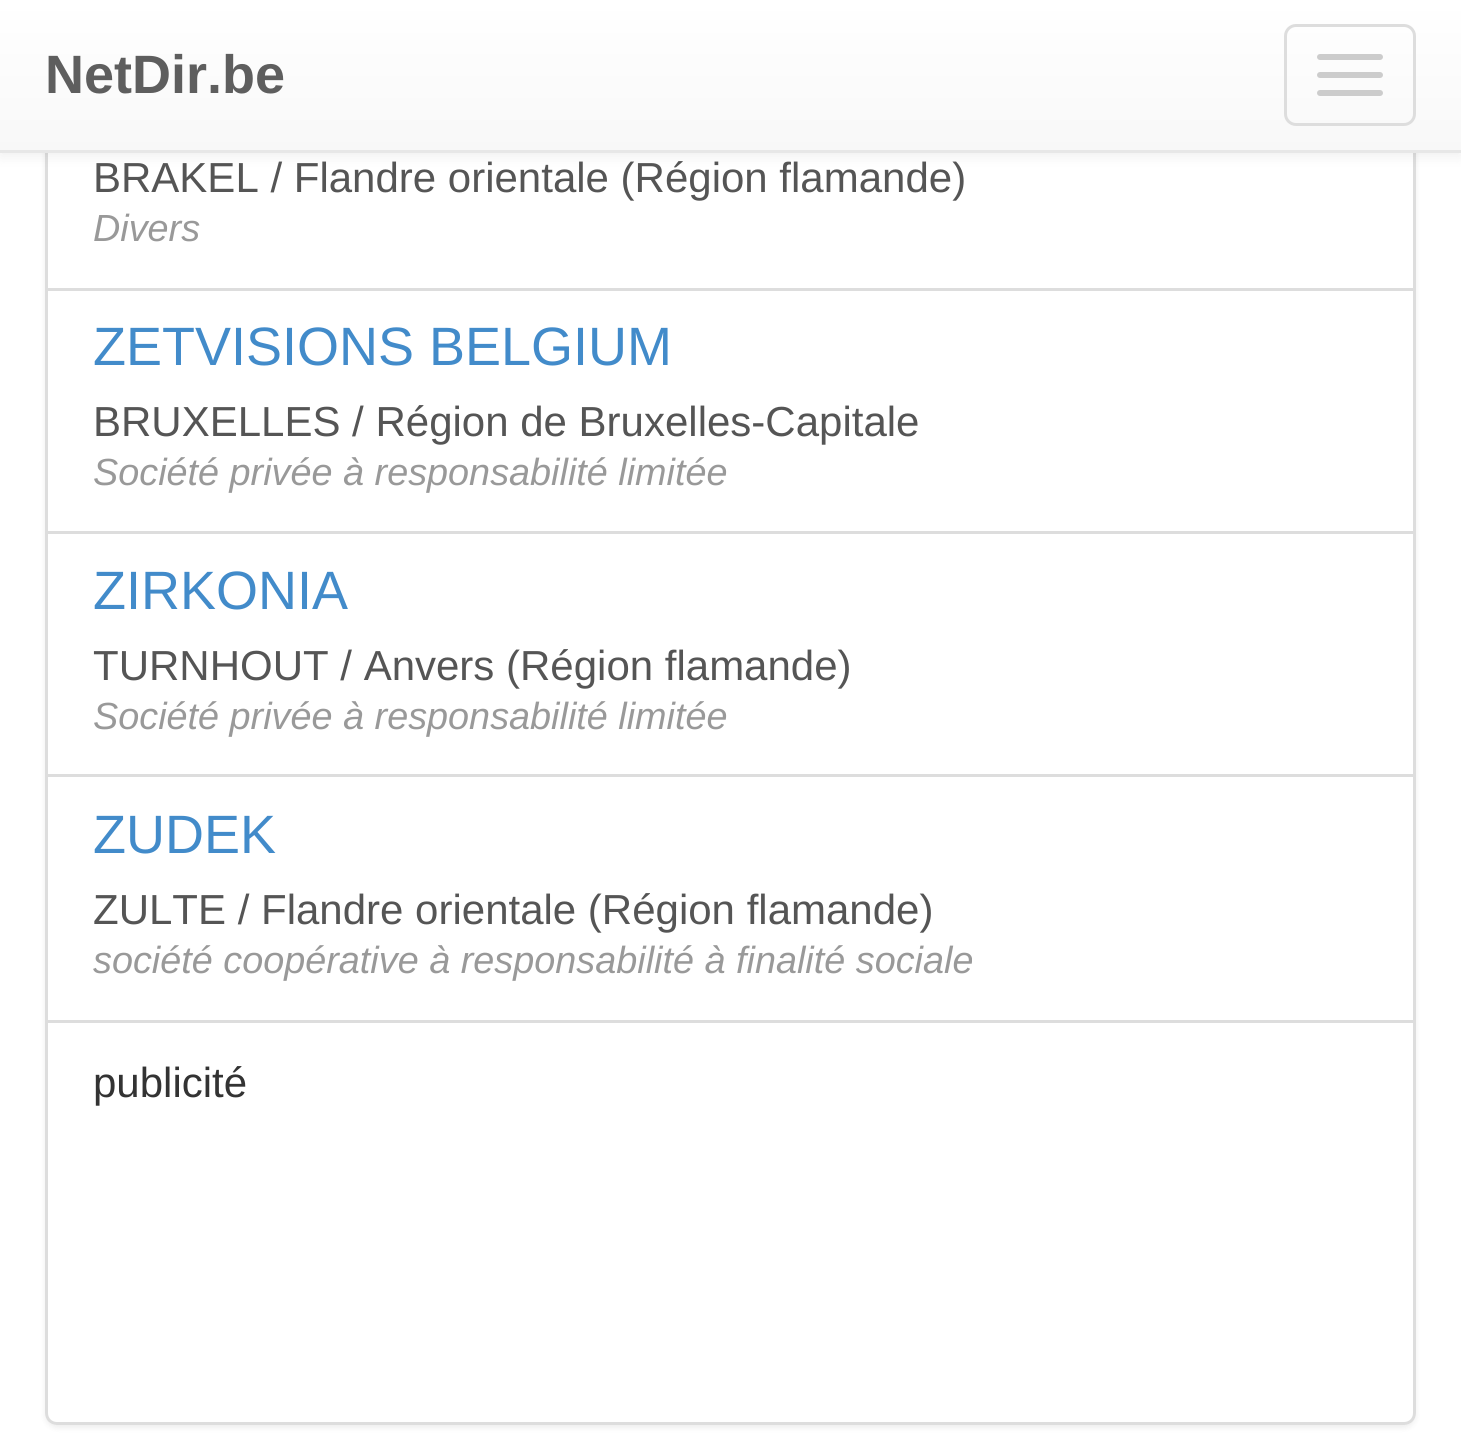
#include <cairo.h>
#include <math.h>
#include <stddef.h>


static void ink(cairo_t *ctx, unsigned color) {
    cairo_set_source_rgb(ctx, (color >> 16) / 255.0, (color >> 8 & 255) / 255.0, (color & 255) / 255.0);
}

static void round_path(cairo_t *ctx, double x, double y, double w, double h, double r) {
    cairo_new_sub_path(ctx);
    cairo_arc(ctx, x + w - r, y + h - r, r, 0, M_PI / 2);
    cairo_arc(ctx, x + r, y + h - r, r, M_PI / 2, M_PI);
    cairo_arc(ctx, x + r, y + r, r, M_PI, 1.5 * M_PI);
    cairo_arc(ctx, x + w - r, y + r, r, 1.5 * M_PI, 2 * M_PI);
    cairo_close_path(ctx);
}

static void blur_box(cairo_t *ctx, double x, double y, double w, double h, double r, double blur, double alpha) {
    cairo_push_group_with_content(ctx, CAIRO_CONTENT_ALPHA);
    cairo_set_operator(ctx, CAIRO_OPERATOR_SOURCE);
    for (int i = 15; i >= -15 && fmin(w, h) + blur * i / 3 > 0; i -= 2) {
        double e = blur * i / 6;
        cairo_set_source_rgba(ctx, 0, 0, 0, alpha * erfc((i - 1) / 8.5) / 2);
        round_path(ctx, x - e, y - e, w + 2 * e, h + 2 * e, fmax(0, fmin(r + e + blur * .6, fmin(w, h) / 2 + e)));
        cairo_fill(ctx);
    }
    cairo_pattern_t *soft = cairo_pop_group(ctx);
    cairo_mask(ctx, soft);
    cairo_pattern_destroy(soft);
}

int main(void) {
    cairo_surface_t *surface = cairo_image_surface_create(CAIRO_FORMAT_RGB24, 1461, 1442);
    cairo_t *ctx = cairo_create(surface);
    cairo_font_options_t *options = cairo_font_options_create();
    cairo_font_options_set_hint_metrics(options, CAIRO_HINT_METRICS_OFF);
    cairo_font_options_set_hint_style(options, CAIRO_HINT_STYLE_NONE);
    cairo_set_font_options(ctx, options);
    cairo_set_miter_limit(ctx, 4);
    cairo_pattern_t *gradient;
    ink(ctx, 0xFFFFFF);
    cairo_paint(ctx);
    cairo_save(ctx);
    cairo_set_fill_rule(ctx, CAIRO_FILL_RULE_EVEN_ODD);
    cairo_new_path(ctx);
    cairo_move_to(ctx, 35, 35);
    cairo_line_to(ctx, 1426, 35);
    cairo_line_to(ctx, 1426, 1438);
    cairo_line_to(ctx, 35, 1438);
    cairo_close_path(ctx);
    cairo_move_to(ctx, 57, 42);
    cairo_line_to(ctx, 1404, 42);
    cairo_curve_to(ctx, 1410.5, 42, 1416, 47.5, 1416, 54);
    cairo_line_to(ctx, 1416, 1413);
    cairo_curve_to(ctx, 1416, 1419.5, 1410.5, 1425, 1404, 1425);
    cairo_line_to(ctx, 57, 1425);
    cairo_curve_to(ctx, 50.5, 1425, 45, 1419.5, 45, 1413);
    cairo_line_to(ctx, 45, 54);
    cairo_curve_to(ctx, 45, 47.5, 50.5, 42, 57, 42);
    cairo_close_path(ctx);
    cairo_clip(ctx);
    ink(ctx, 0x000000);
    blur_box(ctx, 45, 45, 1371, 1383, 12, 3, 0.07);
    cairo_restore(ctx);
    cairo_rectangle(ctx, 46.5, 43.5, 1368, 246);
    ink(ctx, 0xDDDDDD);
    cairo_set_line_width(ctx, 3);
    cairo_stroke(ctx);
    ink(ctx, 0x000000);
    blur_box(ctx, 0, 3, 1461, 153, 0, 7.5, 0.07);
    gradient = cairo_pattern_create_linear(731, 0, 731, 150);
    cairo_pattern_add_color_stop_rgba(gradient, 0, 1, 1, 1, 1);
    cairo_pattern_add_color_stop_rgba(gradient, 1, 0.973, 0.973, 0.973, 1);
    cairo_set_source(ctx, gradient);
    cairo_pattern_destroy(gradient);
    cairo_rectangle(ctx, 0, 0, 1461, 150);
    cairo_fill(ctx);
    ink(ctx, 0xE7E7E7);
    cairo_rectangle(ctx, 0, 150, 1461, 3);
    cairo_fill(ctx);
    cairo_select_font_face(ctx, "Liberation Sans", CAIRO_FONT_SLANT_NORMAL, CAIRO_FONT_WEIGHT_BOLD);
    cairo_set_font_size(ctx, 54);
    ink(ctx, 0x5E5E5E);
    cairo_move_to(ctx, 45, 93);
    cairo_show_text(ctx, "NetDir.be");
    round_path(ctx, 1285.5, 25.5, 129, 99, 10.5);
    ink(ctx, 0xDDDDDD);
    cairo_stroke(ctx);
    ink(ctx, 0xCCCCCC);
    round_path(ctx, 1317, 54, 66, 6, 3);
    cairo_fill(ctx);
    round_path(ctx, 1317, 72, 66, 6, 3);
    cairo_fill(ctx);
    round_path(ctx, 1317, 90, 66, 6, 3);
    cairo_fill(ctx);
    cairo_select_font_face(ctx, "Liberation Sans", CAIRO_FONT_SLANT_NORMAL, CAIRO_FONT_WEIGHT_NORMAL);
    cairo_set_font_size(ctx, 42);
    ink(ctx, 0x555555);
    cairo_move_to(ctx, 93, 192);
    cairo_show_text(ctx, "BRAKEL / Flandre orientale (Région flamande)");
    cairo_select_font_face(ctx, "Liberation Sans", CAIRO_FONT_SLANT_ITALIC, CAIRO_FONT_WEIGHT_NORMAL);
    cairo_set_font_size(ctx, 37.8);
    ink(ctx, 0x999999);
    cairo_move_to(ctx, 93, 241);
    cairo_show_text(ctx, "Divers");
    cairo_rectangle(ctx, 46.5, 289.5, 1368, 243);
    ink(ctx, 0xDDDDDD);
    cairo_stroke(ctx);
    cairo_select_font_face(ctx, "Liberation Sans", CAIRO_FONT_SLANT_NORMAL, CAIRO_FONT_WEIGHT_NORMAL);
    cairo_set_font_size(ctx, 54);
    ink(ctx, 0x428BCA);
    cairo_move_to(ctx, 93, 365);
    cairo_show_text(ctx, "ZETVISIONS BELGIUM");
    cairo_set_font_size(ctx, 42);
    ink(ctx, 0x555555);
    cairo_move_to(ctx, 93, 436);
    cairo_show_text(ctx, "BRUXELLES / Région de Bruxelles-Capitale");
    cairo_select_font_face(ctx, "Liberation Sans", CAIRO_FONT_SLANT_ITALIC, CAIRO_FONT_WEIGHT_NORMAL);
    cairo_set_font_size(ctx, 37.8);
    ink(ctx, 0x999999);
    cairo_move_to(ctx, 93, 485);
    cairo_show_text(ctx, "Société privée à responsabilité limitée");
    cairo_rectangle(ctx, 46.5, 532.5, 1368, 243);
    ink(ctx, 0xDDDDDD);
    cairo_stroke(ctx);
    cairo_select_font_face(ctx, "Liberation Sans", CAIRO_FONT_SLANT_NORMAL, CAIRO_FONT_WEIGHT_NORMAL);
    cairo_set_font_size(ctx, 54);
    ink(ctx, 0x428BCA);
    cairo_move_to(ctx, 93, 609);
    cairo_show_text(ctx, "ZIRKONIA");
    cairo_set_font_size(ctx, 42);
    ink(ctx, 0x555555);
    cairo_move_to(ctx, 93, 680);
    cairo_show_text(ctx, "TURNHOUT / Anvers (Région flamande)");
    cairo_select_font_face(ctx, "Liberation Sans", CAIRO_FONT_SLANT_ITALIC, CAIRO_FONT_WEIGHT_NORMAL);
    cairo_set_font_size(ctx, 37.8);
    ink(ctx, 0x999999);
    cairo_move_to(ctx, 93, 729);
    cairo_show_text(ctx, "Société privée à responsabilité limitée");
    cairo_rectangle(ctx, 46.5, 775.5, 1368, 246);
    ink(ctx, 0xDDDDDD);
    cairo_stroke(ctx);
    cairo_select_font_face(ctx, "Liberation Sans", CAIRO_FONT_SLANT_NORMAL, CAIRO_FONT_WEIGHT_NORMAL);
    cairo_set_font_size(ctx, 54);
    ink(ctx, 0x428BCA);
    cairo_move_to(ctx, 93, 853);
    cairo_show_text(ctx, "ZUDEK");
    cairo_set_font_size(ctx, 42);
    ink(ctx, 0x555555);
    cairo_move_to(ctx, 93, 924);
    cairo_show_text(ctx, "ZULTE / Flandre orientale (Région flamande)");
    cairo_select_font_face(ctx, "Liberation Sans", CAIRO_FONT_SLANT_ITALIC, CAIRO_FONT_WEIGHT_NORMAL);
    cairo_set_font_size(ctx, 37.8);
    ink(ctx, 0x999999);
    cairo_move_to(ctx, 93, 973);
    cairo_show_text(ctx, "société coopérative à responsabilité à finalité sociale");
    ink(ctx, 0xFFFFFF);
    cairo_new_path(ctx);
    cairo_move_to(ctx, 46.5, 1021.5);
    cairo_line_to(ctx, 1414.5, 1021.5);
    cairo_line_to(ctx, 1414.5, 1413);
    cairo_curve_to(ctx, 1414.5, 1419, 1410, 1423.5, 1404, 1423.5);
    cairo_line_to(ctx, 57, 1423.5);
    cairo_curve_to(ctx, 51, 1423.5, 46.5, 1419, 46.5, 1413);
    cairo_close_path(ctx);
    cairo_fill_preserve(ctx);
    ink(ctx, 0xDDDDDD);
    cairo_stroke(ctx);
    cairo_select_font_face(ctx, "Liberation Sans", CAIRO_FONT_SLANT_NORMAL, CAIRO_FONT_WEIGHT_NORMAL);
    cairo_set_font_size(ctx, 42);
    ink(ctx, 0x333333);
    cairo_move_to(ctx, 93, 1097);
    cairo_show_text(ctx, "publicité");
    cairo_surface_write_to_png(surface, "image.png");
    cairo_font_options_destroy(options);
    cairo_destroy(ctx);
    cairo_surface_destroy(surface);
    return 0;
}
